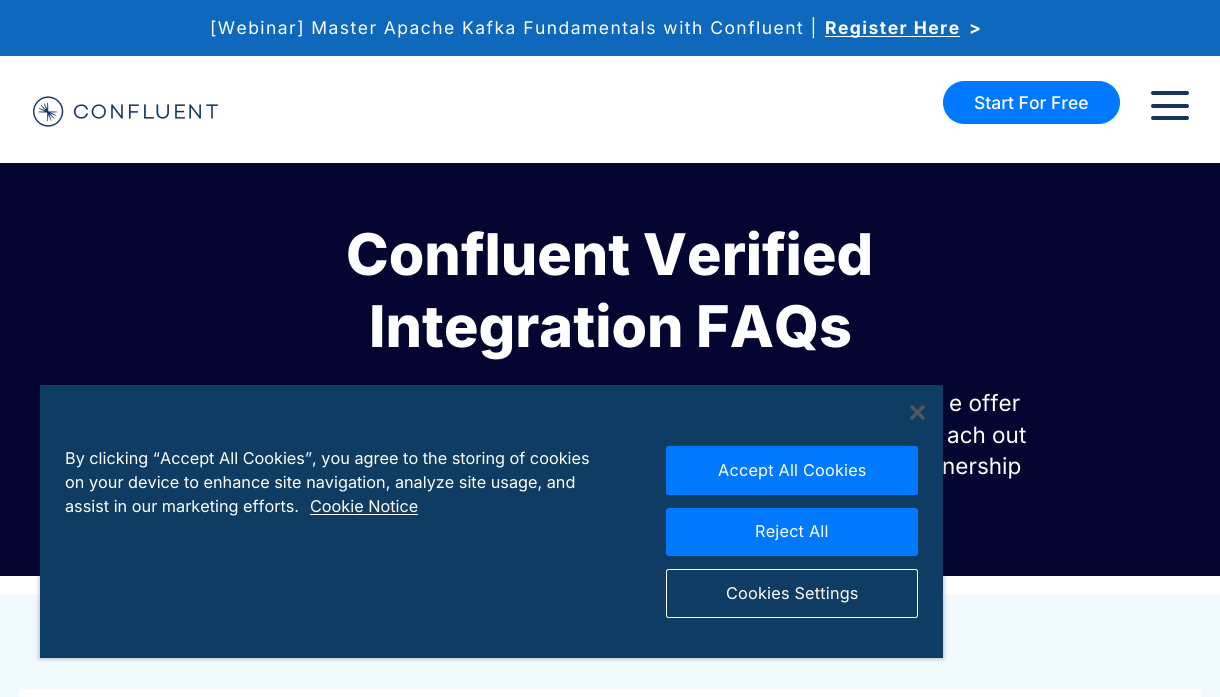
#include <cairo.h>
#include <math.h>
#include <stddef.h>

typedef struct { double x, y; const char *s; } line_t;

static void ink(cairo_t *ctx, unsigned color) {
    cairo_set_source_rgb(ctx, (color >> 16) / 255.0, (color >> 8 & 255) / 255.0, (color & 255) / 255.0);
}

static void write_spaced(cairo_t *ctx, double x, double y, const char *s, double letter, double word) {
    cairo_move_to(ctx, x, y);
    while (*s) {
        char ch[5] = {0};
        int n = 0;
        do ch[n++] = *s++; while ((*s & 0xC0) == 0x80);
        cairo_show_text(ctx, ch);
        cairo_rel_move_to(ctx, letter + word * (*ch == ' '), 0);
    }
}

static void round_path(cairo_t *ctx, double x, double y, double w, double h, double r) {
    cairo_new_sub_path(ctx);
    cairo_arc(ctx, x + w - r, y + h - r, r, 0, M_PI / 2);
    cairo_arc(ctx, x + r, y + h - r, r, M_PI / 2, M_PI);
    cairo_arc(ctx, x + r, y + r, r, M_PI, 1.5 * M_PI);
    cairo_arc(ctx, x + w - r, y + r, r, 1.5 * M_PI, 2 * M_PI);
    cairo_close_path(ctx);
}

static void blur_box(cairo_t *ctx, double x, double y, double w, double h, double r, double blur, double alpha) {
    cairo_push_group_with_content(ctx, CAIRO_CONTENT_ALPHA);
    cairo_set_operator(ctx, CAIRO_OPERATOR_SOURCE);
    for (int i = 15; i >= -15 && fmin(w, h) + blur * i / 3 > 0; i -= 2) {
        double e = blur * i / 6;
        cairo_set_source_rgba(ctx, 0, 0, 0, alpha * erfc((i - 1) / 8.5) / 2);
        round_path(ctx, x - e, y - e, w + 2 * e, h + 2 * e, fmax(0, fmin(r + e + blur * .6, fmin(w, h) / 2 + e)));
        cairo_fill(ctx);
    }
    cairo_pattern_t *soft = cairo_pop_group(ctx);
    cairo_mask(ctx, soft);
    cairo_pattern_destroy(soft);
}

static void paste(cairo_t *ctx, const char *path, double x, double y, double w, double h) {
    cairo_surface_t *image = cairo_image_surface_create_from_png(path);
    cairo_save(ctx);
    cairo_set_source_surface(ctx, image, x, y);
    cairo_rectangle(ctx, x, y, w, h);
    cairo_fill(ctx);
    cairo_restore(ctx);
    cairo_surface_destroy(image);
}

int main(void) {
    cairo_surface_t *surface = cairo_image_surface_create(CAIRO_FORMAT_RGB24, 1220, 697);
    cairo_t *ctx = cairo_create(surface);
    cairo_font_options_t *options = cairo_font_options_create();
    cairo_font_options_set_hint_metrics(options, CAIRO_HINT_METRICS_OFF);
    cairo_font_options_set_hint_style(options, CAIRO_HINT_STYLE_NONE);
    cairo_set_font_options(ctx, options);
    cairo_set_miter_limit(ctx, 4);
    ink(ctx, 0xFFFFFF);
    cairo_paint(ctx);
    ink(ctx, 0x0E68BC);
    cairo_rectangle(ctx, 0, 0, 1220, 56);
    cairo_fill(ctx);
    cairo_select_font_face(ctx, "Inter", CAIRO_FONT_SLANT_NORMAL, CAIRO_FONT_WEIGHT_NORMAL);
    cairo_set_font_size(ctx, 17.5);
    ink(ctx, 0xFFFFFF);
    write_spaced(ctx, 210, 34, "[Webinar] Master Apache Kafka Fundamentals with Confluent |", 1.45, 0);
    cairo_rectangle(ctx, 825, 36, 135, 1);
    cairo_fill(ctx);
    cairo_select_font_face(ctx, "Inter", CAIRO_FONT_SLANT_NORMAL, CAIRO_FONT_WEIGHT_BOLD);
    write_spaced(ctx, 825, 34, "Register Here", 1.45, 0);
    write_spaced(ctx, 969, 34, ">", 1.45, 0);
    paste(ctx, "media/1.png", 33, 96, 185, 31);
    ink(ctx, 0x0079FF);
    round_path(ctx, 943.5, 81.5, 176, 42, 21);
    cairo_fill_preserve(ctx);
    cairo_set_line_width(ctx, 1);
    cairo_stroke(ctx);
    cairo_select_font_face(ctx, "Inter Medium", CAIRO_FONT_SLANT_NORMAL, CAIRO_FONT_WEIGHT_NORMAL);
    ink(ctx, 0xFFFFFF);
    cairo_move_to(ctx, 974, 109);
    cairo_show_text(ctx, "Start For Free");
    ink(ctx, 0x173361);
    round_path(ctx, 1151, 91, 38, 4, 2);
    cairo_fill(ctx);
    round_path(ctx, 1151, 104, 38, 4, 2);
    cairo_fill(ctx);
    round_path(ctx, 1151, 116, 38, 4, 2);
    cairo_fill(ctx);
    ink(ctx, 0x040531);
    cairo_rectangle(ctx, 0, 163, 1220, 413);
    cairo_fill(ctx);
    cairo_select_font_face(ctx, "Inter ExtraBold", CAIRO_FONT_SLANT_NORMAL, CAIRO_FONT_WEIGHT_NORMAL);
    cairo_set_font_size(ctx, 57.5);
    ink(ctx, 0xFFFFFF);
    cairo_move_to(ctx, 346, 275);
    cairo_show_text(ctx, "Confluent Verified");
    cairo_move_to(ctx, 369, 347);
    cairo_show_text(ctx, "Integration FAQs");
    cairo_select_font_face(ctx, "Inter", CAIRO_FONT_SLANT_NORMAL, CAIRO_FONT_WEIGHT_NORMAL);
    cairo_set_font_size(ctx, 22.5);
    {
        static const line_t items[] = {
            {949, 411, "e offer"},
            {947, 443, "ach out"},
            {942, 474, "nership"},
        };
        for (size_t i = 0; i < sizeof items / sizeof *items; i++) {
            cairo_move_to(ctx, items[i].x, items[i].y);
            cairo_show_text(ctx, items[i].s);
        }
    }
    ink(ctx, 0xF1FAFF);
    cairo_rectangle(ctx, 0, 595, 1220, 102);
    cairo_fill(ctx);
    ink(ctx, 0xFFFFFF);
    cairo_rectangle(ctx, 19, 689, 1182, 8);
    cairo_fill(ctx);
    ink(ctx, 0x000000);
    blur_box(ctx, 40, 385, 903, 273, 0, 2.5, 0.35);
    ink(ctx, 0x0E3C62);
    cairo_rectangle(ctx, 40, 385, 903, 273);
    cairo_fill(ctx);
    paste(ctx, "media/2.png", 910, 405, 15, 15);
    cairo_set_font_size(ctx, 16.25);
    ink(ctx, 0xFFFFFF);
    {
        static const line_t items[] = {
            {65, 464, "By clicking “Accept All Cookies”, you agree to the storing of cookies"},
            {65, 488, "on your device to enhance site navigation, analyze site usage, and"},
            {65, 512, "assist in our marketing efforts."},
            {310, 512, "Cookie Notice"},
        };
        for (size_t i = 0; i < sizeof items / sizeof *items; i++) {
            cairo_move_to(ctx, items[i].x, items[i].y);
            cairo_show_text(ctx, items[i].s);
        }
    }
    cairo_rectangle(ctx, 310, 514, 108, 1);
    cairo_fill(ctx);
    ink(ctx, 0x0079FF);
    round_path(ctx, 666.5, 446.5, 251, 48, 2);
    cairo_fill_preserve(ctx);
    cairo_stroke(ctx);
    ink(ctx, 0xFFFFFF);
    write_spaced(ctx, 718, 476, "Accept All Cookies", 0.2, 0);
    ink(ctx, 0x0079FF);
    round_path(ctx, 666.5, 508.5, 251, 47, 2);
    cairo_fill_preserve(ctx);
    cairo_stroke(ctx);
    ink(ctx, 0xFFFFFF);
    write_spaced(ctx, 755, 537, "Reject All", 0.2, 0);
    round_path(ctx, 666.5, 569.5, 251, 48, 2);
    cairo_stroke(ctx);
    write_spaced(ctx, 726, 599, "Cookies Settings", 0.2, 0);
    cairo_surface_write_to_png(surface, "image.png");
    cairo_font_options_destroy(options);
    cairo_destroy(ctx);
    cairo_surface_destroy(surface);
    return 0;
}
